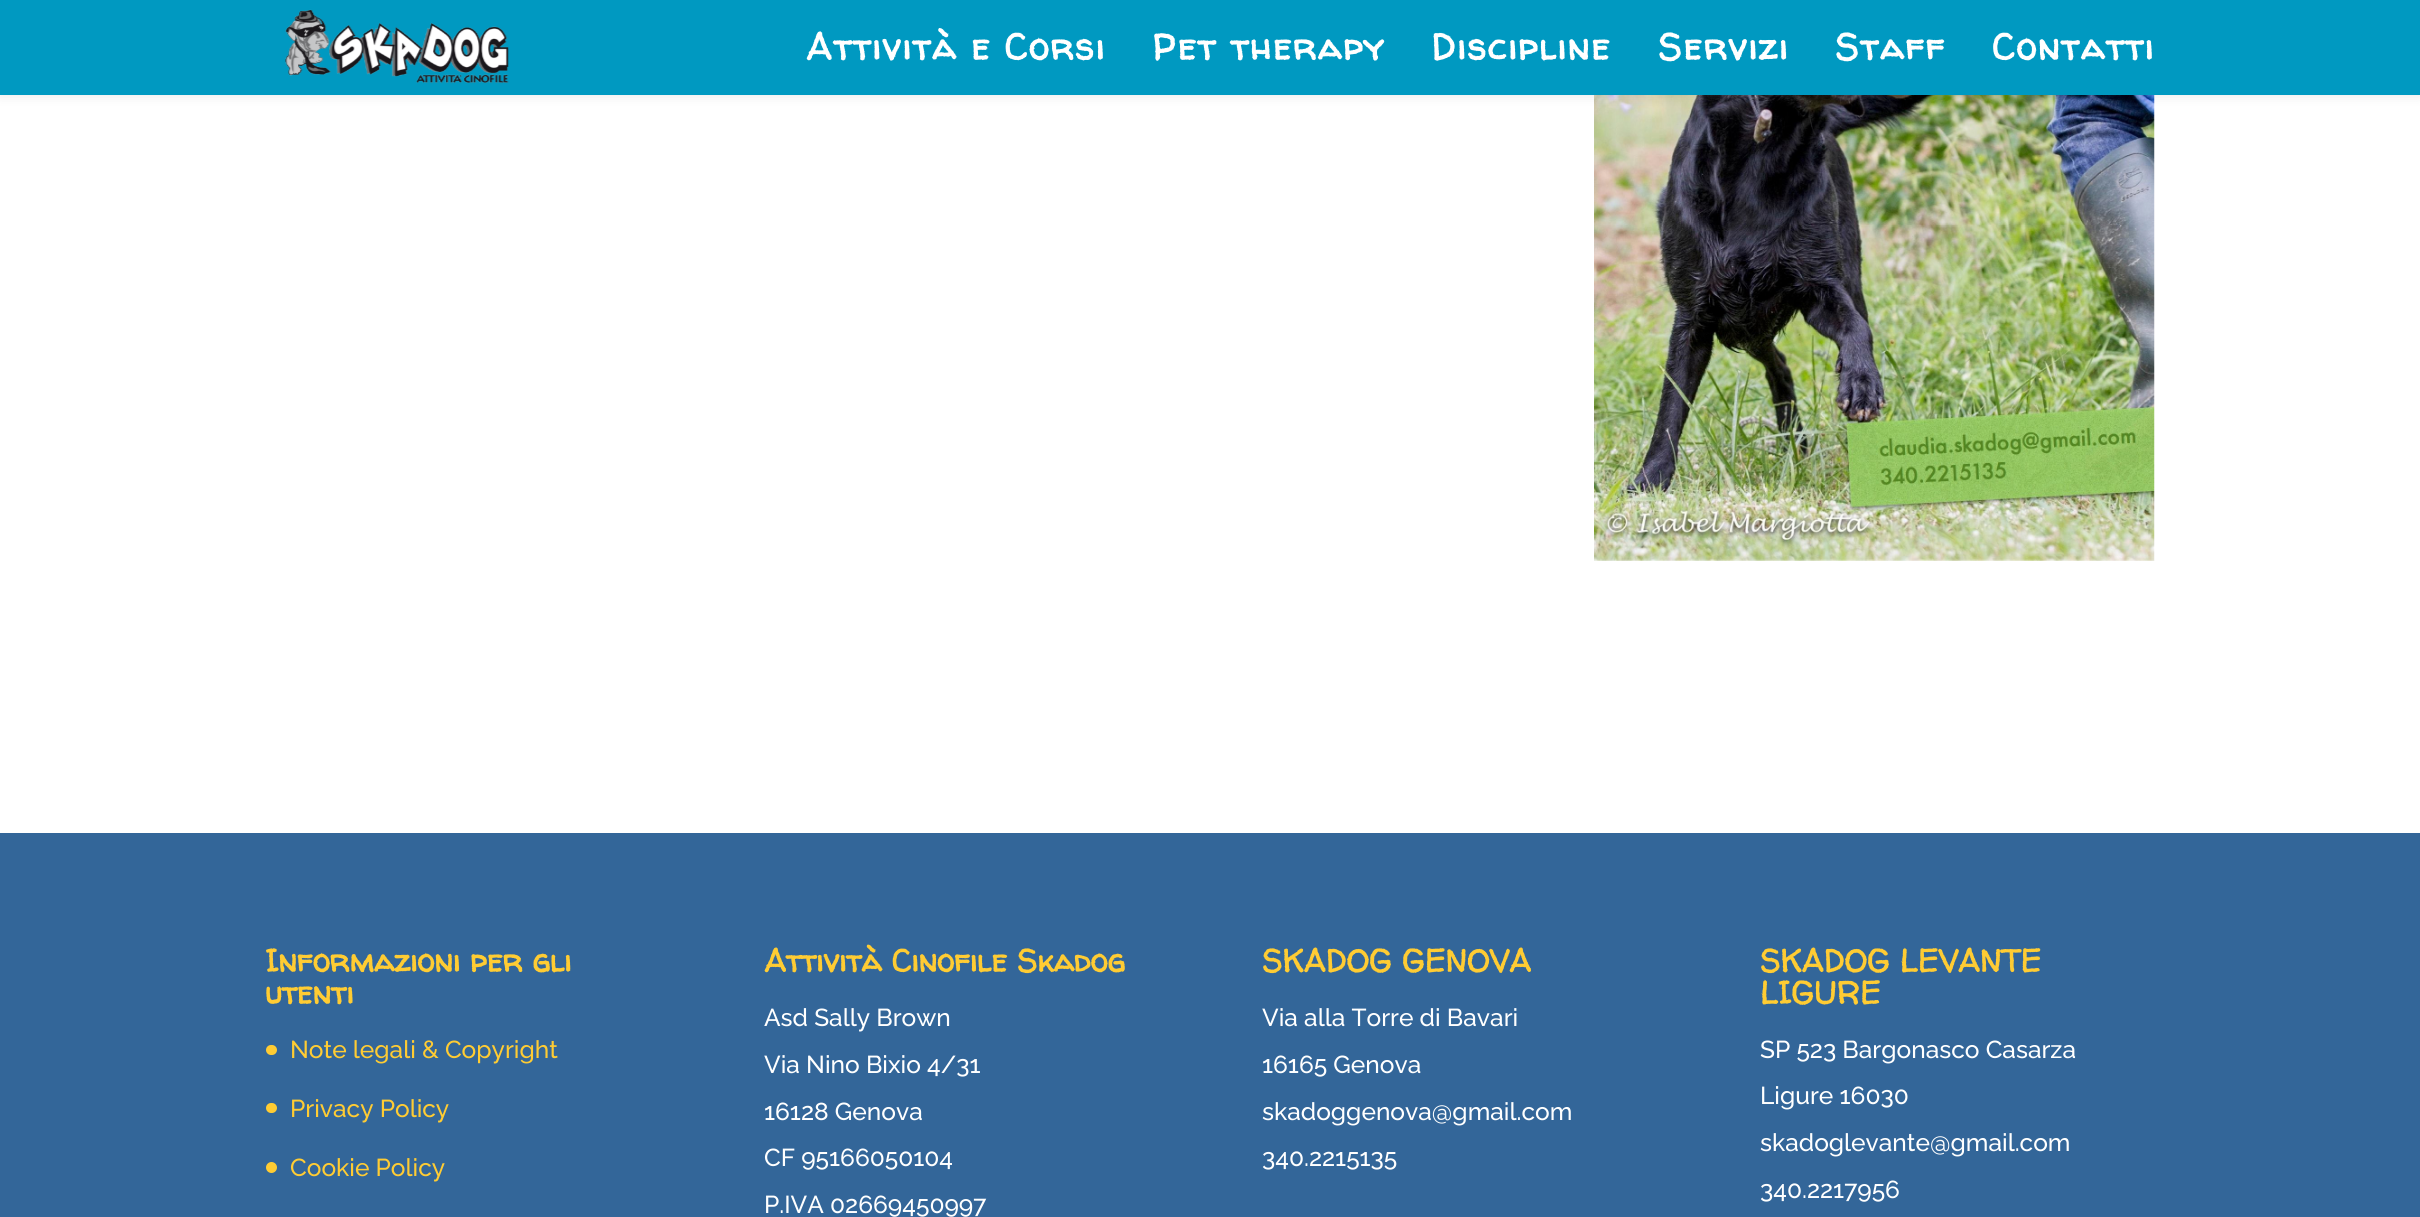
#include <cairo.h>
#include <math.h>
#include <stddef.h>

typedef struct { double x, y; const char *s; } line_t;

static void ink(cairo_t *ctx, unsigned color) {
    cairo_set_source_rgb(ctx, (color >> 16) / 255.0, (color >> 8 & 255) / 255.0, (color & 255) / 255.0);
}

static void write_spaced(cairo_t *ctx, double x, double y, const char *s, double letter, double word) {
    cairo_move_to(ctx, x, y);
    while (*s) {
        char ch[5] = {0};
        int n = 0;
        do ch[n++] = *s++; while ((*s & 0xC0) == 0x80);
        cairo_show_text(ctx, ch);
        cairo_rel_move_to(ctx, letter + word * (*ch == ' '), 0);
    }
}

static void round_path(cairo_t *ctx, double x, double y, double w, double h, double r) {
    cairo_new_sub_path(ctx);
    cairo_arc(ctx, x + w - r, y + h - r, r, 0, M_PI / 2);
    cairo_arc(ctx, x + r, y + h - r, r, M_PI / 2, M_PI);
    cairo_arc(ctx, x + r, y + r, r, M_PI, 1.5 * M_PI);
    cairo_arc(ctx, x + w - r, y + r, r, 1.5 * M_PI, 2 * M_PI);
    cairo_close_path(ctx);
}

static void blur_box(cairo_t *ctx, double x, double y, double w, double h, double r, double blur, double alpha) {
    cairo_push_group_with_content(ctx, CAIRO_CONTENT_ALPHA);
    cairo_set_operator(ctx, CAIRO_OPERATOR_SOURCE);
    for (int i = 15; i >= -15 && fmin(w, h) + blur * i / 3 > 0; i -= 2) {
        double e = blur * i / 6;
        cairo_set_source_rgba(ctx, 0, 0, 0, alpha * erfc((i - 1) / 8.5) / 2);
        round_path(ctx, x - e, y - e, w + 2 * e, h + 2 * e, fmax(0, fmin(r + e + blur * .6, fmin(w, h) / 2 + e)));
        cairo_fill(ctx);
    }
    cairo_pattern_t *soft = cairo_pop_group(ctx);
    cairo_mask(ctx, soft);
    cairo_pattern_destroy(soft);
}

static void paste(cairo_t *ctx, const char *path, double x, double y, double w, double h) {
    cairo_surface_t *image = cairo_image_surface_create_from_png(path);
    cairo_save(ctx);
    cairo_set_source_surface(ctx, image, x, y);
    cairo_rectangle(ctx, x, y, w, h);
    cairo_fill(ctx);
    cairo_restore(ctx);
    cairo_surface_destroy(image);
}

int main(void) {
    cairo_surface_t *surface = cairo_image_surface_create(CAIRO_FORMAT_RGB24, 2420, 1217);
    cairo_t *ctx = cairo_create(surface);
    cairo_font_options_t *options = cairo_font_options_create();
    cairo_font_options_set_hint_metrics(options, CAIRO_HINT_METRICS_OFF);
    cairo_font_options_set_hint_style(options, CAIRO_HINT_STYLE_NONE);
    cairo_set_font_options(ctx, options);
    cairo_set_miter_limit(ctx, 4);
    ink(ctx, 0x336699);
    cairo_paint(ctx);
    ink(ctx, 0xFFFFFF);
    cairo_rectangle(ctx, 0, 95, 2420, 738);
    cairo_fill(ctx);
    paste(ctx, "media/2.png", 1594, 95, 561, 466);
    ink(ctx, 0x000000);
    blur_box(ctx, 0, 0, 2420, 95, 0, 6, 0.1);
    ink(ctx, 0x0099C1);
    cairo_rectangle(ctx, 0, 0, 2420, 95);
    cairo_fill(ctx);
    paste(ctx, "media/1.png", 285, 9, 224, 74);
    cairo_select_font_face(ctx, "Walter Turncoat", CAIRO_FONT_SLANT_NORMAL, CAIRO_FONT_WEIGHT_BOLD);
    cairo_set_font_size(ctx, 36.75);
    ink(ctx, 0xFFFFFF);
    {
        static const line_t items[] = {
            {806, 60, "Attività e Corsi"},
            {1152, 60, "Pet therapy"},
            {1431, 60, "Discipline"},
            {1658, 60, "Servizi"},
            {1835, 60, "Staff"},
            {1992, 60, "Contatti"},
        };
        for (size_t i = 0; i < sizeof items / sizeof *items; i++) {
            write_spaced(ctx, items[i].x, items[i].y, items[i].s, 1.75, 0);
        }
    }
    cairo_set_font_size(ctx, 31.5);
    ink(ctx, 0xFFCC33);
    cairo_move_to(ctx, 265, 972);
    cairo_show_text(ctx, "Informazioni per gli");
    cairo_move_to(ctx, 265, 1004);
    cairo_show_text(ctx, "utenti");
    round_path(ctx, 266, 1045, 11, 10, 5);
    cairo_fill(ctx);
    cairo_select_font_face(ctx, "Raleway Medium", CAIRO_FONT_SLANT_NORMAL, CAIRO_FONT_WEIGHT_NORMAL);
    cairo_set_font_size(ctx, 24.5);
    cairo_move_to(ctx, 290, 1058);
    cairo_show_text(ctx, "Note legali & Copyright");
    round_path(ctx, 266, 1103, 11, 10, 5);
    cairo_fill(ctx);
    cairo_move_to(ctx, 290, 1117);
    cairo_show_text(ctx, "Privacy Policy");
    cairo_new_path(ctx);
    cairo_arc(ctx, 271.5, 1167.5, 5.5, 0, 2 * M_PI);
    cairo_fill(ctx);
    cairo_move_to(ctx, 290, 1176);
    cairo_show_text(ctx, "Cookie Policy");
    cairo_select_font_face(ctx, "Walter Turncoat", CAIRO_FONT_SLANT_NORMAL, CAIRO_FONT_WEIGHT_BOLD);
    cairo_set_font_size(ctx, 31.5);
    cairo_move_to(ctx, 764, 972);
    cairo_show_text(ctx, "Attività Cinofile Skadog");
    cairo_select_font_face(ctx, "Raleway Medium", CAIRO_FONT_SLANT_NORMAL, CAIRO_FONT_WEIGHT_NORMAL);
    cairo_set_font_size(ctx, 24.5);
    ink(ctx, 0xFFFFFF);
    {
        static const line_t items[] = {
            {764, 1026, "Asd Sally Brown"},
            {764, 1073, "Via Nino Bixio 4/31"},
            {764, 1120, "16128 Genova"},
            {764, 1166, "CF 95166050104"},
            {764, 1213, "P.IVA 02669450997"},
        };
        for (size_t i = 0; i < sizeof items / sizeof *items; i++) {
            cairo_move_to(ctx, items[i].x, items[i].y);
            cairo_show_text(ctx, items[i].s);
        }
    }
    cairo_select_font_face(ctx, "Walter Turncoat", CAIRO_FONT_SLANT_NORMAL, CAIRO_FONT_WEIGHT_BOLD);
    cairo_set_font_size(ctx, 31.5);
    ink(ctx, 0xFFCC33);
    cairo_move_to(ctx, 1262, 972);
    cairo_show_text(ctx, "SKADOG GENOVA");
    cairo_select_font_face(ctx, "Raleway Medium", CAIRO_FONT_SLANT_NORMAL, CAIRO_FONT_WEIGHT_NORMAL);
    cairo_set_font_size(ctx, 24.5);
    ink(ctx, 0xFFFFFF);
    {
        static const line_t items[] = {
            {1262, 1026, "Via alla Torre di Bavari"},
            {1262, 1073, "16165 Genova"},
            {1262, 1120, "skadoggenova@gmail.com"},
            {1262, 1166, "340.2215135"},
        };
        for (size_t i = 0; i < sizeof items / sizeof *items; i++) {
            cairo_move_to(ctx, items[i].x, items[i].y);
            cairo_show_text(ctx, items[i].s);
        }
    }
    cairo_select_font_face(ctx, "Walter Turncoat", CAIRO_FONT_SLANT_NORMAL, CAIRO_FONT_WEIGHT_BOLD);
    cairo_set_font_size(ctx, 31.5);
    ink(ctx, 0xFFCC33);
    cairo_move_to(ctx, 1760, 972);
    cairo_show_text(ctx, "SKADOG LEVANTE");
    cairo_move_to(ctx, 1760, 1004);
    cairo_show_text(ctx, "LIGURE");
    cairo_select_font_face(ctx, "Raleway Medium", CAIRO_FONT_SLANT_NORMAL, CAIRO_FONT_WEIGHT_NORMAL);
    cairo_set_font_size(ctx, 24.5);
    ink(ctx, 0xFFFFFF);
    {
        static const line_t items[] = {
            {1760, 1058, "SP 523 Bargonasco Casarza"},
            {1760, 1104, "Ligure 16030"},
            {1760, 1151, "skadoglevante@gmail.com"},
            {1760, 1198, "340.2217956"},
        };
        for (size_t i = 0; i < sizeof items / sizeof *items; i++) {
            cairo_move_to(ctx, items[i].x, items[i].y);
            cairo_show_text(ctx, items[i].s);
        }
    }
    cairo_surface_write_to_png(surface, "image.png");
    cairo_font_options_destroy(options);
    cairo_destroy(ctx);
    cairo_surface_destroy(surface);
    return 0;
}
